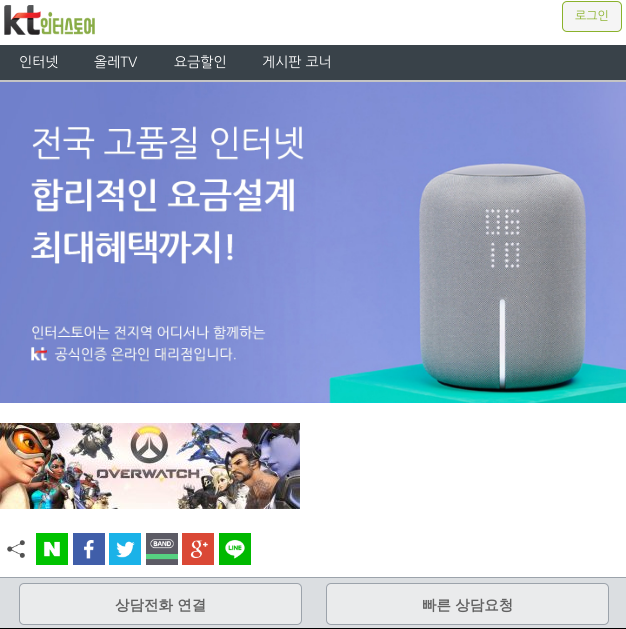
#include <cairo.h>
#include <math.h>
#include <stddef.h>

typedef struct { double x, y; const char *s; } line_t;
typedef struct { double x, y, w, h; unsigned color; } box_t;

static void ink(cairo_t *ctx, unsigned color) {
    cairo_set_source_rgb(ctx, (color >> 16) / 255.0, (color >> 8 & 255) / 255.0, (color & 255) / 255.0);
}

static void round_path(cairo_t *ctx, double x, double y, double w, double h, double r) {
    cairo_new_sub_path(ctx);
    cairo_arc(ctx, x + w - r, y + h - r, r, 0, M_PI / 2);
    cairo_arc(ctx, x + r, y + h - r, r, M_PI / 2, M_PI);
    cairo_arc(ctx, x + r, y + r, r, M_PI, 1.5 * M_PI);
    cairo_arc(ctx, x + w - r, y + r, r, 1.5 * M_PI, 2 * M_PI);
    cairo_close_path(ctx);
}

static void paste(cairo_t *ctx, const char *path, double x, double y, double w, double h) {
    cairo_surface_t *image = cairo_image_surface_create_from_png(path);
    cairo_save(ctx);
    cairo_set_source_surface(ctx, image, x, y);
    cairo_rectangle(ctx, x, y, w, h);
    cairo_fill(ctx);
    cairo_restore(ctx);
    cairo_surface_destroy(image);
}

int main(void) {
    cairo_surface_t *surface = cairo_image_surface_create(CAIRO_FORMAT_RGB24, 626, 629);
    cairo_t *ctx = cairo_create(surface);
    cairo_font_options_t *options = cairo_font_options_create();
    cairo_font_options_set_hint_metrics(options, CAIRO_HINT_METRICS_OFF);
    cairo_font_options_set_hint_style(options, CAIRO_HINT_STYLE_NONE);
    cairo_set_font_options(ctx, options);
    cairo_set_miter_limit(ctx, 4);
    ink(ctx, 0xFFFFFF);
    cairo_paint(ctx);
    ink(ctx, 0xC4C4C4);
    cairo_rectangle(ctx, 0, 80, 626, 2);
    cairo_fill(ctx);
    paste(ctx, "media/1.png", 4, 5, 91, 30);
    ink(ctx, 0xF5F5F5);
    round_path(ctx, 562.5, 1.5, 59, 30, 4.5);
    cairo_fill_preserve(ctx);
    ink(ctx, 0x8AB22B);
    cairo_set_line_width(ctx, 1);
    cairo_stroke(ctx);
    cairo_select_font_face(ctx, "NanumGothic", CAIRO_FONT_SLANT_NORMAL, CAIRO_FONT_WEIGHT_NORMAL);
    cairo_set_font_size(ctx, 12);
    cairo_move_to(ctx, 575, 20);
    cairo_show_text(ctx, "로그인");
    ink(ctx, 0x394249);
    cairo_rectangle(ctx, 0, 45, 626, 35);
    cairo_fill(ctx);
    cairo_set_font_size(ctx, 14);
    ink(ctx, 0xFFFFFF);
    {
        static const line_t items[] = {
            {19, 67, "인터넷"},
            {94, 67, "올레TV"},
            {174, 67, "요금할인"},
            {262, 67, "게시판 코너"},
        };
        for (size_t i = 0; i < sizeof items / sizeof *items; i++) {
            cairo_move_to(ctx, items[i].x, items[i].y);
            cairo_show_text(ctx, items[i].s);
        }
    }
    paste(ctx, "media/2.png", 0, 82, 626, 321);
    paste(ctx, "media/3.png", 0, 423, 300, 86);
    paste(ctx, "media/4.png", 7, 540, 18, 18);
    paste(ctx, "media/5.png", 36, 533, 32, 32);
    paste(ctx, "media/6.png", 73, 533, 32, 32);
    paste(ctx, "media/7.png", 109, 533, 32, 32);
    paste(ctx, "media/8.png", 146, 533, 32, 32);
    paste(ctx, "media/9.png", 182, 533, 32, 32);
    paste(ctx, "media/10.png", 219, 533, 32, 32);
    {
        static const box_t items[] = {
            {0, 578, 626, 50, 0xDBDEE1},
            {0, 577, 626, 1, 0x9CA3AB},
            {0, 628, 626, 1, 0x000000},
        };
        for (size_t i = 0; i < sizeof items / sizeof *items; i++) {
            ink(ctx, items[i].color);
            cairo_rectangle(ctx, items[i].x, items[i].y, items[i].w, items[i].h);
            cairo_fill(ctx);
        }
    }
    ink(ctx, 0xEAEBEC);
    round_path(ctx, 19.5, 583.5, 282, 41, 4.5);
    cairo_fill_preserve(ctx);
    ink(ctx, 0x9CA3AB);
    cairo_stroke(ctx);
    cairo_select_font_face(ctx, "WenQuanYi Zen Hei", CAIRO_FONT_SLANT_NORMAL, CAIRO_FONT_WEIGHT_BOLD);
    cairo_set_font_size(ctx, 14.5);
    ink(ctx, 0x626262);
    cairo_move_to(ctx, 115, 610);
    cairo_show_text(ctx, "상담전화 연결");
    ink(ctx, 0xEAEBEC);
    round_path(ctx, 326.5, 583.5, 282, 41, 4.5);
    cairo_fill_preserve(ctx);
    ink(ctx, 0x9CA3AB);
    cairo_stroke(ctx);
    ink(ctx, 0x626262);
    cairo_move_to(ctx, 422, 610);
    cairo_show_text(ctx, "빠른 상담요청");
    cairo_surface_write_to_png(surface, "image.png");
    cairo_font_options_destroy(options);
    cairo_destroy(ctx);
    cairo_surface_destroy(surface);
    return 0;
}
